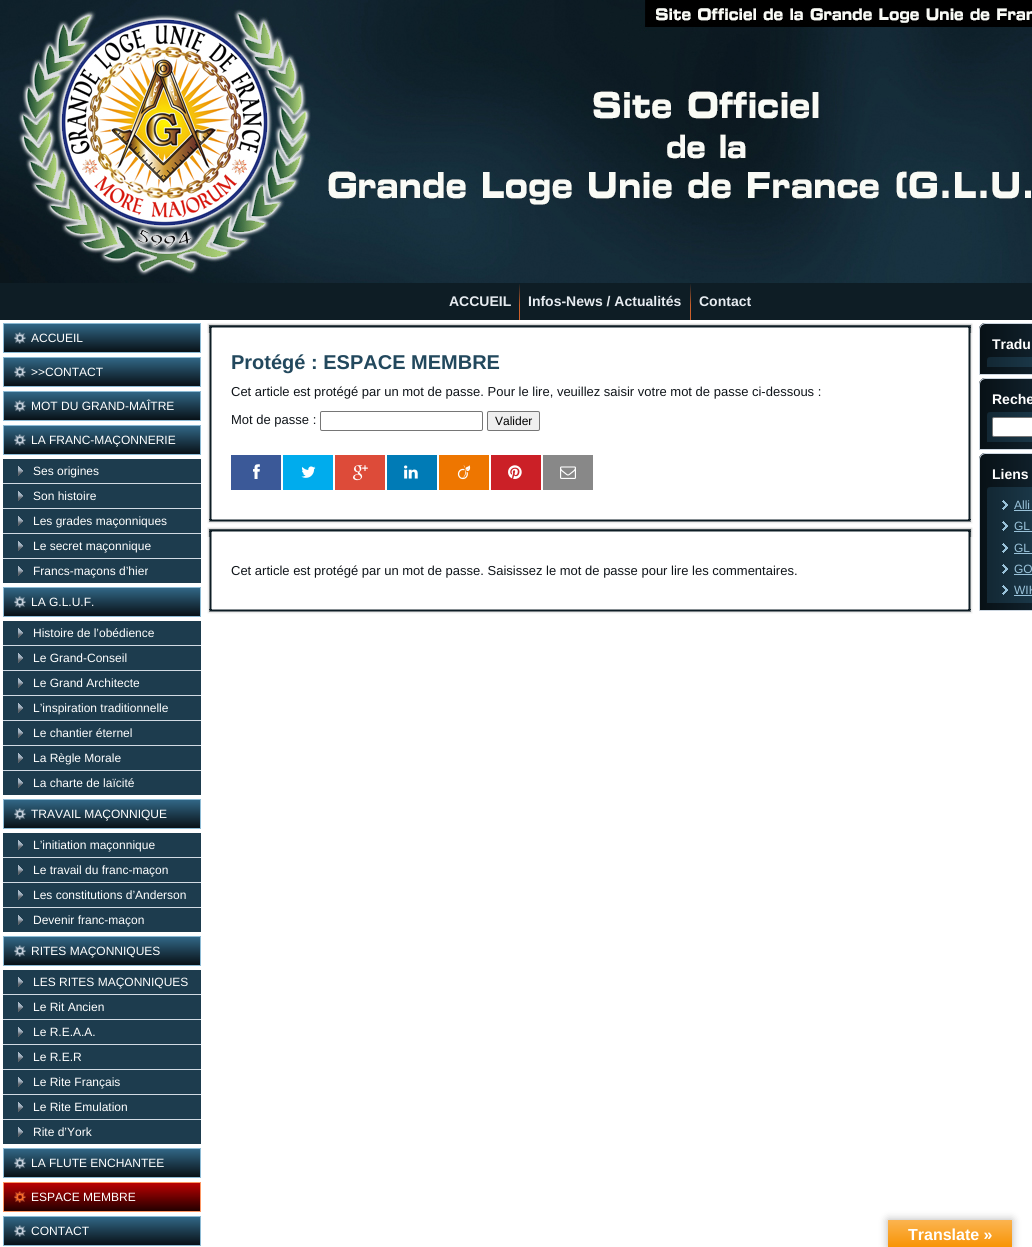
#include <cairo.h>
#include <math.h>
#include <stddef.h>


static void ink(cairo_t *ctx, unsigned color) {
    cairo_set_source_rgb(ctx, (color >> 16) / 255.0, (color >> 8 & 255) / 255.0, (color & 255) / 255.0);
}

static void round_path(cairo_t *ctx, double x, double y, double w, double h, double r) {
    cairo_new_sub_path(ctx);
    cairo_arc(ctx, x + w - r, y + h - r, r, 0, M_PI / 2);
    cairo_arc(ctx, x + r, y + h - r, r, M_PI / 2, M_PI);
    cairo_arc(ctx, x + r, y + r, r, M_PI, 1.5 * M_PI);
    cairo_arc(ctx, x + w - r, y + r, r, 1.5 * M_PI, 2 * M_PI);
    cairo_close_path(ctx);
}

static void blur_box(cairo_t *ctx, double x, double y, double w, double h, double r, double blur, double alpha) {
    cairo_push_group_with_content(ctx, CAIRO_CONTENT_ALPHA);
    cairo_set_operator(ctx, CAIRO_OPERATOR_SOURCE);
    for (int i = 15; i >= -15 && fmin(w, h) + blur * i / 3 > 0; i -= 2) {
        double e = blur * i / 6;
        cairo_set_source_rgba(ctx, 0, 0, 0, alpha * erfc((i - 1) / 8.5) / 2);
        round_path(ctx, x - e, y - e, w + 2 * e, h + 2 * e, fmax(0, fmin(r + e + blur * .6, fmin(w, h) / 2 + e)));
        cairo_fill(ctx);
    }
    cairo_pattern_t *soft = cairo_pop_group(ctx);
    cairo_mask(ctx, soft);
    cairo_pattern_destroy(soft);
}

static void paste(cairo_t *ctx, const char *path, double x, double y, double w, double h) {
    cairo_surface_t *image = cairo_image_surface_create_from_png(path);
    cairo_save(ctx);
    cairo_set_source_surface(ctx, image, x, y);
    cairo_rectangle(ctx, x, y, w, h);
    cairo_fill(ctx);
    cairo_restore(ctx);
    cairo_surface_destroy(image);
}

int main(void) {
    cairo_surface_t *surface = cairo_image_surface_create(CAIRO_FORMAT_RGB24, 1032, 1247);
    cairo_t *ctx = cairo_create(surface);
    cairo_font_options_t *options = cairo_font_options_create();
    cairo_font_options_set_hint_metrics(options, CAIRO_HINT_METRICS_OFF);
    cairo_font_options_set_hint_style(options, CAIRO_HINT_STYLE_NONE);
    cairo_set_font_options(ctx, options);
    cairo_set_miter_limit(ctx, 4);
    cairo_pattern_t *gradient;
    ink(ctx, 0xFFFFFF);
    cairo_paint(ctx);
    paste(ctx, "media/1.png", 0, 0, 1032, 283);
    ink(ctx, 0x0E1D25);
    cairo_rectangle(ctx, 0, 283, 1032, 37);
    cairo_fill(ctx);
    cairo_select_font_face(ctx, "Liberation Sans", CAIRO_FONT_SLANT_NORMAL, CAIRO_FONT_WEIGHT_BOLD);
    cairo_set_font_size(ctx, 14);
    ink(ctx, 0xE6EBF0);
    cairo_move_to(ctx, 449, 306);
    cairo_show_text(ctx, "ACCUEIL");
    paste(ctx, "media/2.png", 519, 284, 1, 36);
    cairo_move_to(ctx, 528, 306);
    cairo_show_text(ctx, "Infos-News / Actualités");
    paste(ctx, "media/2.png", 690, 284, 1, 36);
    cairo_move_to(ctx, 699, 306);
    cairo_show_text(ctx, "Contact");
    paste(ctx, "media/3.png", 204, 320, 828, 927);
    paste(ctx, "media/4.png", 3, 323, 175, 30);
    paste(ctx, "media/5.png", 178, 323, 23, 30);
    cairo_select_font_face(ctx, "Liberation Sans", CAIRO_FONT_SLANT_NORMAL, CAIRO_FONT_WEIGHT_NORMAL);
    cairo_set_font_size(ctx, 12);
    ink(ctx, 0xFFFFFF);
    cairo_move_to(ctx, 31, 342);
    cairo_show_text(ctx, "ACCUEIL");
    paste(ctx, "media/4.png", 3, 357, 175, 30);
    paste(ctx, "media/5.png", 178, 357, 23, 30);
    cairo_move_to(ctx, 31, 376);
    cairo_show_text(ctx, ">>CONTACT");
    paste(ctx, "media/4.png", 3, 391, 175, 30);
    paste(ctx, "media/5.png", 178, 391, 23, 30);
    cairo_move_to(ctx, 31, 410);
    cairo_show_text(ctx, "MOT DU GRAND-MAÎTRE");
    paste(ctx, "media/4.png", 3, 425, 175, 30);
    paste(ctx, "media/5.png", 178, 425, 23, 30);
    cairo_move_to(ctx, 31, 444);
    cairo_show_text(ctx, "LA FRANC-MAÇONNERIE");
    ink(ctx, 0x1D3C4E);
    cairo_rectangle(ctx, 3, 459, 198, 24);
    cairo_fill(ctx);
    paste(ctx, "media/6.png", 18, 466, 5, 10);
    ink(ctx, 0xFFFFFF);
    cairo_move_to(ctx, 33, 475);
    cairo_show_text(ctx, "Ses origines");
    ink(ctx, 0xD2DBE4);
    cairo_rectangle(ctx, 3, 483, 198, 1);
    cairo_fill(ctx);
    ink(ctx, 0x1D3C4E);
    cairo_rectangle(ctx, 3, 484, 198, 24);
    cairo_fill(ctx);
    paste(ctx, "media/6.png", 18, 491, 5, 10);
    ink(ctx, 0xFFFFFF);
    cairo_move_to(ctx, 33, 500);
    cairo_show_text(ctx, "Son histoire");
    ink(ctx, 0xD2DBE4);
    cairo_rectangle(ctx, 3, 508, 198, 1);
    cairo_fill(ctx);
    ink(ctx, 0x1D3C4E);
    cairo_rectangle(ctx, 3, 509, 198, 24);
    cairo_fill(ctx);
    paste(ctx, "media/6.png", 18, 516, 5, 10);
    ink(ctx, 0xFFFFFF);
    cairo_move_to(ctx, 33, 525);
    cairo_show_text(ctx, "Les grades maçonniques");
    ink(ctx, 0xD2DBE4);
    cairo_rectangle(ctx, 3, 533, 198, 1);
    cairo_fill(ctx);
    ink(ctx, 0x1D3C4E);
    cairo_rectangle(ctx, 3, 534, 198, 24);
    cairo_fill(ctx);
    paste(ctx, "media/6.png", 18, 541, 5, 10);
    ink(ctx, 0xFFFFFF);
    cairo_move_to(ctx, 33, 550);
    cairo_show_text(ctx, "Le secret maçonnique");
    ink(ctx, 0xD2DBE4);
    cairo_rectangle(ctx, 3, 558, 198, 1);
    cairo_fill(ctx);
    ink(ctx, 0x1D3C4E);
    cairo_rectangle(ctx, 3, 559, 198, 24);
    cairo_fill(ctx);
    paste(ctx, "media/6.png", 18, 566, 5, 10);
    ink(ctx, 0xFFFFFF);
    cairo_move_to(ctx, 33, 575);
    cairo_show_text(ctx, "Francs-maçons d’hier");
    paste(ctx, "media/4.png", 3, 587, 175, 30);
    paste(ctx, "media/5.png", 178, 587, 23, 30);
    cairo_move_to(ctx, 31, 606);
    cairo_show_text(ctx, "LA G.L.U.F.");
    ink(ctx, 0x1D3C4E);
    cairo_rectangle(ctx, 3, 621, 198, 24);
    cairo_fill(ctx);
    paste(ctx, "media/6.png", 18, 628, 5, 10);
    ink(ctx, 0xFFFFFF);
    cairo_move_to(ctx, 33, 637);
    cairo_show_text(ctx, "Histoire de l’obédience");
    ink(ctx, 0xD2DBE4);
    cairo_rectangle(ctx, 3, 645, 198, 1);
    cairo_fill(ctx);
    ink(ctx, 0x1D3C4E);
    cairo_rectangle(ctx, 3, 646, 198, 24);
    cairo_fill(ctx);
    paste(ctx, "media/6.png", 18, 653, 5, 10);
    ink(ctx, 0xFFFFFF);
    cairo_move_to(ctx, 33, 662);
    cairo_show_text(ctx, "Le Grand-Conseil");
    ink(ctx, 0xD2DBE4);
    cairo_rectangle(ctx, 3, 670, 198, 1);
    cairo_fill(ctx);
    ink(ctx, 0x1D3C4E);
    cairo_rectangle(ctx, 3, 671, 198, 24);
    cairo_fill(ctx);
    paste(ctx, "media/6.png", 18, 678, 5, 10);
    ink(ctx, 0xFFFFFF);
    cairo_move_to(ctx, 33, 687);
    cairo_show_text(ctx, "Le Grand Architecte");
    ink(ctx, 0xD2DBE4);
    cairo_rectangle(ctx, 3, 695, 198, 1);
    cairo_fill(ctx);
    ink(ctx, 0x1D3C4E);
    cairo_rectangle(ctx, 3, 696, 198, 24);
    cairo_fill(ctx);
    paste(ctx, "media/6.png", 18, 703, 5, 10);
    ink(ctx, 0xFFFFFF);
    cairo_move_to(ctx, 33, 712);
    cairo_show_text(ctx, "L’inspiration traditionnelle");
    ink(ctx, 0xD2DBE4);
    cairo_rectangle(ctx, 3, 720, 198, 1);
    cairo_fill(ctx);
    ink(ctx, 0x1D3C4E);
    cairo_rectangle(ctx, 3, 721, 198, 24);
    cairo_fill(ctx);
    paste(ctx, "media/6.png", 18, 728, 5, 10);
    ink(ctx, 0xFFFFFF);
    cairo_move_to(ctx, 33, 737);
    cairo_show_text(ctx, "Le chantier éternel");
    ink(ctx, 0xD2DBE4);
    cairo_rectangle(ctx, 3, 745, 198, 1);
    cairo_fill(ctx);
    ink(ctx, 0x1D3C4E);
    cairo_rectangle(ctx, 3, 746, 198, 24);
    cairo_fill(ctx);
    paste(ctx, "media/6.png", 18, 753, 5, 10);
    ink(ctx, 0xFFFFFF);
    cairo_move_to(ctx, 33, 762);
    cairo_show_text(ctx, "La Règle Morale");
    ink(ctx, 0xD2DBE4);
    cairo_rectangle(ctx, 3, 770, 198, 1);
    cairo_fill(ctx);
    ink(ctx, 0x1D3C4E);
    cairo_rectangle(ctx, 3, 771, 198, 24);
    cairo_fill(ctx);
    paste(ctx, "media/6.png", 18, 778, 5, 10);
    ink(ctx, 0xFFFFFF);
    cairo_move_to(ctx, 33, 787);
    cairo_show_text(ctx, "La charte de laïcité");
    paste(ctx, "media/4.png", 3, 799, 175, 30);
    paste(ctx, "media/5.png", 178, 799, 23, 30);
    cairo_move_to(ctx, 31, 818);
    cairo_show_text(ctx, "TRAVAIL MAÇONNIQUE");
    ink(ctx, 0x1D3C4E);
    cairo_rectangle(ctx, 3, 833, 198, 24);
    cairo_fill(ctx);
    paste(ctx, "media/6.png", 18, 840, 5, 10);
    ink(ctx, 0xFFFFFF);
    cairo_move_to(ctx, 33, 849);
    cairo_show_text(ctx, "L’initiation maçonnique");
    ink(ctx, 0xD2DBE4);
    cairo_rectangle(ctx, 3, 857, 198, 1);
    cairo_fill(ctx);
    ink(ctx, 0x1D3C4E);
    cairo_rectangle(ctx, 3, 858, 198, 24);
    cairo_fill(ctx);
    paste(ctx, "media/6.png", 18, 865, 5, 10);
    ink(ctx, 0xFFFFFF);
    cairo_move_to(ctx, 33, 874);
    cairo_show_text(ctx, "Le travail du franc-maçon");
    ink(ctx, 0xD2DBE4);
    cairo_rectangle(ctx, 3, 882, 198, 1);
    cairo_fill(ctx);
    ink(ctx, 0x1D3C4E);
    cairo_rectangle(ctx, 3, 883, 198, 24);
    cairo_fill(ctx);
    paste(ctx, "media/6.png", 18, 890, 5, 10);
    ink(ctx, 0xFFFFFF);
    cairo_move_to(ctx, 33, 899);
    cairo_show_text(ctx, "Les constitutions d’Anderson");
    ink(ctx, 0xD2DBE4);
    cairo_rectangle(ctx, 3, 907, 198, 1);
    cairo_fill(ctx);
    ink(ctx, 0x1D3C4E);
    cairo_rectangle(ctx, 3, 908, 198, 24);
    cairo_fill(ctx);
    paste(ctx, "media/6.png", 18, 915, 5, 10);
    ink(ctx, 0xFFFFFF);
    cairo_move_to(ctx, 33, 924);
    cairo_show_text(ctx, "Devenir franc-maçon");
    paste(ctx, "media/4.png", 3, 936, 175, 30);
    paste(ctx, "media/5.png", 178, 936, 23, 30);
    cairo_move_to(ctx, 31, 955);
    cairo_show_text(ctx, "RITES MAÇONNIQUES");
    ink(ctx, 0x1D3C4E);
    cairo_rectangle(ctx, 3, 970, 198, 24);
    cairo_fill(ctx);
    paste(ctx, "media/6.png", 18, 977, 5, 10);
    ink(ctx, 0xFFFFFF);
    cairo_move_to(ctx, 33, 986);
    cairo_show_text(ctx, "LES RITES MAÇONNIQUES");
    ink(ctx, 0xD2DBE4);
    cairo_rectangle(ctx, 3, 994, 198, 1);
    cairo_fill(ctx);
    ink(ctx, 0x1D3C4E);
    cairo_rectangle(ctx, 3, 995, 198, 24);
    cairo_fill(ctx);
    paste(ctx, "media/6.png", 18, 1002, 5, 10);
    ink(ctx, 0xFFFFFF);
    cairo_move_to(ctx, 33, 1011);
    cairo_show_text(ctx, "Le Rit Ancien");
    ink(ctx, 0xD2DBE4);
    cairo_rectangle(ctx, 3, 1019, 198, 1);
    cairo_fill(ctx);
    ink(ctx, 0x1D3C4E);
    cairo_rectangle(ctx, 3, 1020, 198, 24);
    cairo_fill(ctx);
    paste(ctx, "media/6.png", 18, 1027, 5, 10);
    ink(ctx, 0xFFFFFF);
    cairo_move_to(ctx, 33, 1036);
    cairo_show_text(ctx, "Le R.E.A.A.");
    ink(ctx, 0xD2DBE4);
    cairo_rectangle(ctx, 3, 1044, 198, 1);
    cairo_fill(ctx);
    ink(ctx, 0x1D3C4E);
    cairo_rectangle(ctx, 3, 1045, 198, 24);
    cairo_fill(ctx);
    paste(ctx, "media/6.png", 18, 1052, 5, 10);
    ink(ctx, 0xFFFFFF);
    cairo_move_to(ctx, 33, 1061);
    cairo_show_text(ctx, "Le R.E.R");
    ink(ctx, 0xD2DBE4);
    cairo_rectangle(ctx, 3, 1069, 198, 1);
    cairo_fill(ctx);
    ink(ctx, 0x1D3C4E);
    cairo_rectangle(ctx, 3, 1070, 198, 24);
    cairo_fill(ctx);
    paste(ctx, "media/6.png", 18, 1077, 5, 10);
    ink(ctx, 0xFFFFFF);
    cairo_move_to(ctx, 33, 1086);
    cairo_show_text(ctx, "Le Rite Français");
    ink(ctx, 0xD2DBE4);
    cairo_rectangle(ctx, 3, 1094, 198, 1);
    cairo_fill(ctx);
    ink(ctx, 0x1D3C4E);
    cairo_rectangle(ctx, 3, 1095, 198, 24);
    cairo_fill(ctx);
    paste(ctx, "media/6.png", 18, 1102, 5, 10);
    ink(ctx, 0xFFFFFF);
    cairo_move_to(ctx, 33, 1111);
    cairo_show_text(ctx, "Le Rite Emulation");
    ink(ctx, 0xD2DBE4);
    cairo_rectangle(ctx, 3, 1119, 198, 1);
    cairo_fill(ctx);
    ink(ctx, 0x1D3C4E);
    cairo_rectangle(ctx, 3, 1120, 198, 24);
    cairo_fill(ctx);
    paste(ctx, "media/6.png", 18, 1127, 5, 10);
    ink(ctx, 0xFFFFFF);
    cairo_move_to(ctx, 33, 1136);
    cairo_show_text(ctx, "Rite d’York");
    paste(ctx, "media/4.png", 3, 1148, 175, 30);
    paste(ctx, "media/5.png", 178, 1148, 23, 30);
    cairo_move_to(ctx, 31, 1167);
    cairo_show_text(ctx, "LA FLUTE ENCHANTEE");
    paste(ctx, "media/7.png", 3, 1182, 175, 30);
    paste(ctx, "media/8.png", 178, 1182, 23, 30);
    cairo_move_to(ctx, 31, 1201);
    cairo_show_text(ctx, "ESPACE MEMBRE");
    paste(ctx, "media/4.png", 3, 1216, 175, 30);
    paste(ctx, "media/5.png", 178, 1216, 23, 30);
    cairo_move_to(ctx, 31, 1235);
    cairo_show_text(ctx, "CONTACT");
    paste(ctx, "media/9.png", 207, 323, 756, 201);
    paste(ctx, "media/10.png", 207, 323, 756, 10);
    paste(ctx, "media/21.png", 968, 333, 5, 181);
    paste(ctx, "media/11.png", 963, 323, 10, 201);
    paste(ctx, "media/12.png", 963, 323, 10, 10);
    paste(ctx, "media/13.png", 207, 333, 5, 181);
    cairo_select_font_face(ctx, "Liberation Sans", CAIRO_FONT_SLANT_NORMAL, CAIRO_FONT_WEIGHT_BOLD);
    cairo_set_font_size(ctx, 20);
    ink(ctx, 0x22485D);
    cairo_move_to(ctx, 231, 369);
    cairo_show_text(ctx, "Protégé : ESPACE MEMBRE");
    cairo_select_font_face(ctx, "Liberation Sans", CAIRO_FONT_SLANT_NORMAL, CAIRO_FONT_WEIGHT_NORMAL);
    cairo_set_font_size(ctx, 13);
    ink(ctx, 0x0F1419);
    cairo_move_to(ctx, 231, 396);
    cairo_show_text(ctx, "Cet article est protégé par un mot de passe. Pour le lire, veuillez saisir votre mot de passe ci-dessous :");
    cairo_move_to(ctx, 231, 424);
    cairo_show_text(ctx, "Mot de passe :");
    round_path(ctx, 320.5, 411.5, 162, 19, 1.5);
    ink(ctx, 0x767676);
    cairo_set_line_width(ctx, 1);
    cairo_stroke(ctx);
    ink(ctx, 0xEFEFEF);
    round_path(ctx, 487.5, 411.5, 52, 19, 1.5);
    cairo_fill_preserve(ctx);
    ink(ctx, 0x767676);
    cairo_stroke(ctx);
    cairo_set_font_size(ctx, 12);
    ink(ctx, 0x000000);
    cairo_move_to(ctx, 495, 425);
    cairo_show_text(ctx, "Valider");
    ink(ctx, 0x3B5998);
    cairo_rectangle(ctx, 231, 455, 50, 35);
    cairo_fill(ctx);
    paste(ctx, "media/14.png", 253, 464, 7, 15);
    ink(ctx, 0x00ACED);
    cairo_rectangle(ctx, 283, 455, 50, 35);
    cairo_fill(ctx);
    paste(ctx, "media/15.png", 301, 466, 15, 12);
    ink(ctx, 0xDD4B39);
    cairo_rectangle(ctx, 335, 455, 50, 35);
    cairo_fill(ctx);
    paste(ctx, "media/16.png", 353, 465, 15, 16);
    ink(ctx, 0x007BB6);
    cairo_rectangle(ctx, 387, 455, 50, 35);
    cairo_fill(ctx);
    paste(ctx, "media/17.png", 404, 465, 14, 14);
    ink(ctx, 0xEE7600);
    cairo_rectangle(ctx, 439, 455, 50, 35);
    cairo_fill(ctx);
    paste(ctx, "media/18.png", 457, 465, 14, 15);
    ink(ctx, 0xCB2027);
    cairo_rectangle(ctx, 491, 455, 50, 35);
    cairo_fill(ctx);
    paste(ctx, "media/19.png", 508, 465, 14, 14);
    ink(ctx, 0x888888);
    cairo_rectangle(ctx, 543, 455, 50, 35);
    cairo_fill(ctx);
    paste(ctx, "media/20.png", 560, 466, 16, 13);
    paste(ctx, "media/22.png", 207, 527, 756, 87);
    paste(ctx, "media/10.png", 207, 527, 756, 10);
    paste(ctx, "media/25.png", 968, 537, 5, 67);
    paste(ctx, "media/23.png", 963, 527, 10, 87);
    paste(ctx, "media/12.png", 963, 527, 10, 10);
    paste(ctx, "media/24.png", 207, 537, 5, 67);
    cairo_set_font_size(ctx, 13);
    ink(ctx, 0x0F1419);
    cairo_move_to(ctx, 231, 575);
    cairo_show_text(ctx, "Cet article est protégé par un mot de passe. Saisissez le mot de passe pour lire les commentaires.");
    paste(ctx, "media/26.png", 979, 323, 53, 52);
    paste(ctx, "media/27.png", 979, 323, 5, 5);
    paste(ctx, "media/28.png", 979, 330, 53, 38);
    cairo_select_font_face(ctx, "Liberation Sans", CAIRO_FONT_SLANT_NORMAL, CAIRO_FONT_WEIGHT_BOLD);
    cairo_set_font_size(ctx, 14);
    ink(ctx, 0xFFFFFF);
    cairo_move_to(ctx, 992, 349);
    cairo_show_text(ctx, "Tradu");
    paste(ctx, "media/29.png", 987, 357, 45, 10);
    paste(ctx, "media/30.png", 987, 357, 2, 2);
    paste(ctx, "media/31.png", 987, 360, 45, 4);
    paste(ctx, "media/32.png", 979, 378, 53, 72);
    paste(ctx, "media/27.png", 979, 378, 5, 5);
    paste(ctx, "media/33.png", 979, 385, 53, 58);
    cairo_move_to(ctx, 992, 404);
    cairo_show_text(ctx, "Reche");
    paste(ctx, "media/34.png", 987, 412, 45, 30);
    paste(ctx, "media/30.png", 987, 412, 2, 2);
    paste(ctx, "media/35.png", 987, 415, 45, 24);
    round_path(ctx, 992.5, 417.5, 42, 19, 1.5);
    cairo_fill_preserve(ctx);
    ink(ctx, 0x767676);
    cairo_stroke(ctx);
    paste(ctx, "media/36.png", 979, 453, 53, 158);
    paste(ctx, "media/27.png", 979, 453, 5, 5);
    paste(ctx, "media/37.png", 979, 460, 53, 144);
    ink(ctx, 0xFFFFFF);
    cairo_move_to(ctx, 992, 479);
    cairo_show_text(ctx, "Liens");
    paste(ctx, "media/38.png", 987, 487, 45, 116);
    paste(ctx, "media/30.png", 987, 487, 2, 2);
    paste(ctx, "media/39.png", 987, 490, 45, 110);
    paste(ctx, "media/40.png", 1002, 500, 6, 10);
    cairo_select_font_face(ctx, "Liberation Sans", CAIRO_FONT_SLANT_NORMAL, CAIRO_FONT_WEIGHT_NORMAL);
    cairo_set_font_size(ctx, 12);
    ink(ctx, 0x9AC3DA);
    cairo_move_to(ctx, 1014, 509);
    cairo_show_text(ctx, "Alli");
    cairo_rectangle(ctx, 1014, 510, 18, 1);
    cairo_fill(ctx);
    paste(ctx, "media/40.png", 1002, 521, 6, 10);
    cairo_move_to(ctx, 1014, 530);
    cairo_show_text(ctx, "GL");
    cairo_rectangle(ctx, 1014, 531, 18, 1);
    cairo_fill(ctx);
    paste(ctx, "media/40.png", 1002, 543, 6, 10);
    cairo_move_to(ctx, 1014, 552);
    cairo_show_text(ctx, "GL");
    cairo_rectangle(ctx, 1014, 553, 18, 1);
    cairo_fill(ctx);
    paste(ctx, "media/40.png", 1002, 564, 6, 10);
    cairo_move_to(ctx, 1014, 573);
    cairo_show_text(ctx, "GO");
    cairo_rectangle(ctx, 1014, 574, 18, 1);
    cairo_fill(ctx);
    paste(ctx, "media/40.png", 1002, 585, 6, 10);
    cairo_move_to(ctx, 1014, 594);
    cairo_show_text(ctx, "WIK");
    cairo_rectangle(ctx, 1014, 595, 18, 1);
    cairo_fill(ctx);
    ink(ctx, 0x000000);
    blur_box(ctx, 888, 1220, 124, 27, 0, 4.5, 0.3);
    gradient = cairo_pattern_create_linear(950, 1220, 950, 1247);
    cairo_pattern_add_color_stop_rgba(gradient, 0, 0.984, 0.706, 0.314, 1);
    cairo_pattern_add_color_stop_rgba(gradient, 1, 0.973, 0.58, 0.024, 1);
    cairo_set_source(ctx, gradient);
    cairo_pattern_destroy(gradient);
    cairo_rectangle(ctx, 888, 1220, 124, 27);
    cairo_fill(ctx);
    cairo_select_font_face(ctx, "Liberation Sans", CAIRO_FONT_SLANT_NORMAL, CAIRO_FONT_WEIGHT_BOLD);
    cairo_set_font_size(ctx, 16);
    ink(ctx, 0xFFFFFF);
    cairo_move_to(ctx, 908, 1240);
    cairo_show_text(ctx, "Translate »");
    cairo_surface_write_to_png(surface, "image.png");
    cairo_font_options_destroy(options);
    cairo_destroy(ctx);
    cairo_surface_destroy(surface);
    return 0;
}
